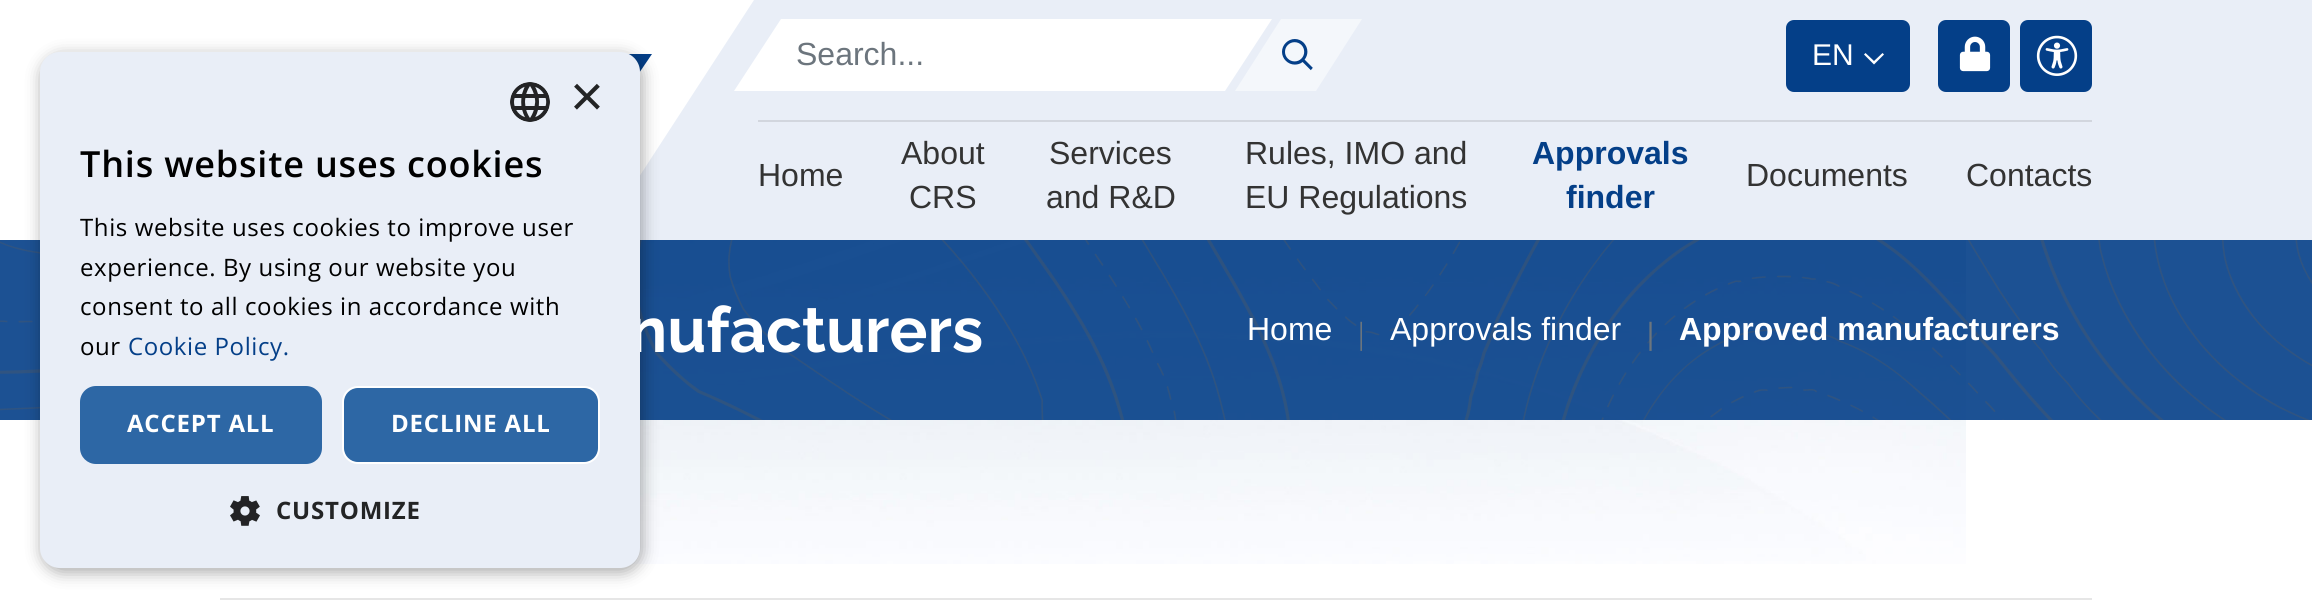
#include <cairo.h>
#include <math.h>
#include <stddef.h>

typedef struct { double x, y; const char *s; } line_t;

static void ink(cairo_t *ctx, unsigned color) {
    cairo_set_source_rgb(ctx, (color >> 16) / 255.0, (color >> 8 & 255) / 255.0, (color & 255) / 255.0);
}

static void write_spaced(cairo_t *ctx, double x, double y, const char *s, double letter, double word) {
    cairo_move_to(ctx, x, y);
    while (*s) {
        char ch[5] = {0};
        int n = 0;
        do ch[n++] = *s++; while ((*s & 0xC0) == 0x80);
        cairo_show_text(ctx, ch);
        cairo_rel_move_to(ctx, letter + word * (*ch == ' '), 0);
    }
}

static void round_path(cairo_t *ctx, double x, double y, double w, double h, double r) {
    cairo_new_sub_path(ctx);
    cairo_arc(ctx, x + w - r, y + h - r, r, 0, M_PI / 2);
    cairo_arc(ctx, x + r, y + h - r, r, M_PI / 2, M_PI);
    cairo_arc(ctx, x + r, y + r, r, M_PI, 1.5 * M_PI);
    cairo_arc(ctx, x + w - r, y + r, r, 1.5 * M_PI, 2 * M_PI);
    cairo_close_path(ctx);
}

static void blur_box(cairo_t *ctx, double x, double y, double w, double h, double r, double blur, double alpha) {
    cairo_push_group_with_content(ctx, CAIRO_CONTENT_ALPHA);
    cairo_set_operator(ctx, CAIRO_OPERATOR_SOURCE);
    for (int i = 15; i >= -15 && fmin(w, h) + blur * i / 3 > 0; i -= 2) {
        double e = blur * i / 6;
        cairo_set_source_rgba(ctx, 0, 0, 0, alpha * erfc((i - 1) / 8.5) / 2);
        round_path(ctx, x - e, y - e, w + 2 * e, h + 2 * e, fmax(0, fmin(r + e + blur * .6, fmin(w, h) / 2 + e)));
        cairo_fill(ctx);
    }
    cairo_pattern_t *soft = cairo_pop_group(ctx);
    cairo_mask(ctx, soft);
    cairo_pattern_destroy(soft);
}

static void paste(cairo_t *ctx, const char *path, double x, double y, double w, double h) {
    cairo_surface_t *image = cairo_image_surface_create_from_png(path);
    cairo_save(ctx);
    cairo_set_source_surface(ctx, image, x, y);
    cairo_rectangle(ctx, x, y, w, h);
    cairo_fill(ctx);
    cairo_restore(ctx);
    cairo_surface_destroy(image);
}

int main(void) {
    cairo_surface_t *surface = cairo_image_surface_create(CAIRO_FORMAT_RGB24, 2312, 608);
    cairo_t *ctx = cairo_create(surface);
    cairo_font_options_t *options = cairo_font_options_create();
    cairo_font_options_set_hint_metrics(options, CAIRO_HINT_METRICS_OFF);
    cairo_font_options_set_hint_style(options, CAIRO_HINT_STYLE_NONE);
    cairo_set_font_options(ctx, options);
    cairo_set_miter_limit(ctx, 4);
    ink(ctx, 0xFFFFFF);
    cairo_paint(ctx);
    paste(ctx, "media/3.png", 628, 54, 24, 18);
    ink(ctx, 0xE9EEF7);
    cairo_rectangle(ctx, 2038, 0, 274, 240);
    cairo_fill(ctx);
    cairo_new_path(ctx);
    cairo_move_to(ctx, 754, 0);
    cairo_line_to(ctx, 2194, 0);
    cairo_line_to(ctx, 2038, 240);
    cairo_line_to(ctx, 598, 240);
    cairo_close_path(ctx);
    cairo_fill(ctx);
    paste(ctx, "media/6.png", 632, 240, 1334, 324);
    cairo_set_source_rgba(ctx, 0.016, 0.247, 0.533, 0.9);
    cairo_rectangle(ctx, 0, 240, 2312, 180);
    cairo_fill(ctx);
    paste(ctx, "media/7.png", 0, 240, 2312, 180);
    ink(ctx, 0x000000);
    blur_box(ctx, 42, 56, 600, 516, 20, 8, 0.35);
    cairo_select_font_face(ctx, "Raleway", CAIRO_FONT_SLANT_NORMAL, CAIRO_FONT_WEIGHT_BOLD);
    cairo_set_font_size(ctx, 63.25);
    ink(ctx, 0xFFFFFF);
    cairo_move_to(ctx, 629, 352);
    cairo_show_text(ctx, "nufacturers");
    ink(ctx, 0xE9EEF7);
    round_path(ctx, 40, 52, 600, 516, 20);
    cairo_fill(ctx);
    paste(ctx, "media/1.png", 510, 82, 40, 40);
    cairo_select_font_face(ctx, "Liberation Sans", CAIRO_FONT_SLANT_NORMAL, CAIRO_FONT_WEIGHT_NORMAL);
    cairo_set_font_size(ctx, 58);
    ink(ctx, 0x232425);
    cairo_move_to(ctx, 570, 116);
    cairo_show_text(ctx, "×");
    cairo_select_font_face(ctx, "Open Sans SemiBold", CAIRO_FONT_SLANT_NORMAL, CAIRO_FONT_WEIGHT_NORMAL);
    cairo_set_font_size(ctx, 36);
    ink(ctx, 0x000000);
    write_spaced(ctx, 80, 177, "This website uses cookies", 0.8, 0);
    cairo_select_font_face(ctx, "Open Sans", CAIRO_FONT_SLANT_NORMAL, CAIRO_FONT_WEIGHT_NORMAL);
    cairo_set_font_size(ctx, 24);
    {
        static const line_t items[] = {
            {80, 236, "This website uses cookies to improve user"},
            {80, 276, "experience. By using our website you"},
            {80, 315, "consent to all cookies in accordance with"},
            {80, 355, "our"},
        };
        for (size_t i = 0; i < sizeof items / sizeof *items; i++) {
            write_spaced(ctx, items[i].x, items[i].y, items[i].s, 0.6, 0);
        }
    }
    ink(ctx, 0x043F88);
    write_spaced(ctx, 128, 355, "Cookie Policy.", 0.6, 0);
    ink(ctx, 0x2D67A5);
    round_path(ctx, 80, 386, 242, 78, 16);
    cairo_fill(ctx);
    cairo_select_font_face(ctx, "Open Sans", CAIRO_FONT_SLANT_NORMAL, CAIRO_FONT_WEIGHT_BOLD);
    ink(ctx, 0xFFFFFF);
    write_spaced(ctx, 127, 432, "ACCEPT ALL", 0.8, 0);
    ink(ctx, 0x2D67A5);
    round_path(ctx, 343, 387, 256, 76, 15);
    cairo_fill_preserve(ctx);
    ink(ctx, 0xFFFFFF);
    cairo_stroke(ctx);
    write_spaced(ctx, 391, 432, "DECLINE ALL", 0.8, 0);
    paste(ctx, "media/2.png", 230, 496, 30, 30);
    ink(ctx, 0x232425);
    write_spaced(ctx, 276, 519, "CUSTOMIZE", 0.8, 0);
    ink(ctx, 0xFFFFFF);
    cairo_new_path(ctx);
    cairo_move_to(ctx, 781, 19);
    cairo_line_to(ctx, 1272, 19);
    cairo_line_to(ctx, 1225, 91);
    cairo_line_to(ctx, 734, 91);
    cairo_close_path(ctx);
    cairo_fill(ctx);
    cairo_select_font_face(ctx, "Liberation Sans", CAIRO_FONT_SLANT_NORMAL, CAIRO_FONT_WEIGHT_NORMAL);
    cairo_set_font_size(ctx, 32);
    ink(ctx, 0x6C757D);
    cairo_move_to(ctx, 796, 65);
    cairo_show_text(ctx, "Search...");
    ink(ctx, 0xF4F7FB);
    cairo_new_path(ctx);
    cairo_move_to(ctx, 1281, 19);
    cairo_line_to(ctx, 1362, 19);
    cairo_line_to(ctx, 1316, 91);
    cairo_line_to(ctx, 1235, 91);
    cairo_close_path(ctx);
    cairo_fill(ctx);
    cairo_select_font_face(ctx, "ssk", CAIRO_FONT_SLANT_NORMAL, CAIRO_FONT_WEIGHT_NORMAL);
    ink(ctx, 0x043F88);
    cairo_move_to(ctx, 1282, 69);
    cairo_show_text(ctx, "@");
    round_path(ctx, 1787, 21, 122, 70, 7);
    cairo_fill_preserve(ctx);
    cairo_stroke(ctx);
    cairo_select_font_face(ctx, "Liberation Sans", CAIRO_FONT_SLANT_NORMAL, CAIRO_FONT_WEIGHT_NORMAL);
    cairo_set_font_size(ctx, 30);
    ink(ctx, 0xFFFFFF);
    cairo_move_to(ctx, 1812, 65);
    cairo_show_text(ctx, "EN");
    cairo_new_path(ctx);
    cairo_move_to(ctx, 1864, 54.5);
    cairo_line_to(ctx, 1865.5, 53);
    cairo_line_to(ctx, 1874, 61);
    cairo_line_to(ctx, 1882.5, 53);
    cairo_line_to(ctx, 1884, 54.5);
    cairo_line_to(ctx, 1874, 64.5);
    cairo_close_path(ctx);
    cairo_fill(ctx);
    ink(ctx, 0x043F88);
    round_path(ctx, 1939, 21, 70, 70, 7);
    cairo_fill_preserve(ctx);
    cairo_stroke(ctx);
    paste(ctx, "media/4.png", 1959, 36, 32, 36);
    round_path(ctx, 2021, 21, 70, 70, 7);
    cairo_fill_preserve(ctx);
    cairo_stroke(ctx);
    paste(ctx, "media/5.png", 2036, 35, 42, 41);
    ink(ctx, 0xD2D6DE);
    cairo_rectangle(ctx, 758, 120, 1334, 2);
    cairo_fill(ctx);
    cairo_set_font_size(ctx, 32);
    ink(ctx, 0x333333);
    {
        static const line_t items[] = {
            {758, 186, "Home"},
            {901, 164, "About"},
            {909, 208, "CRS"},
            {1049, 164, "Services"},
            {1046, 208, "and R&D"},
            {1245, 164, "Rules, IMO and"},
            {1245, 208, "EU Regulations"},
        };
        for (size_t i = 0; i < sizeof items / sizeof *items; i++) {
            cairo_move_to(ctx, items[i].x, items[i].y);
            cairo_show_text(ctx, items[i].s);
        }
    }
    cairo_select_font_face(ctx, "Liberation Sans", CAIRO_FONT_SLANT_NORMAL, CAIRO_FONT_WEIGHT_BOLD);
    ink(ctx, 0x043F88);
    cairo_move_to(ctx, 1532, 164);
    cairo_show_text(ctx, "Approvals");
    cairo_move_to(ctx, 1566, 208);
    cairo_show_text(ctx, "finder");
    cairo_select_font_face(ctx, "Liberation Sans", CAIRO_FONT_SLANT_NORMAL, CAIRO_FONT_WEIGHT_NORMAL);
    ink(ctx, 0x333333);
    cairo_move_to(ctx, 1746, 186);
    cairo_show_text(ctx, "Documents");
    cairo_move_to(ctx, 1966, 186);
    cairo_show_text(ctx, "Contacts");
    ink(ctx, 0xFFFFFF);
    cairo_move_to(ctx, 1247, 340);
    cairo_show_text(ctx, "Home");
    cairo_select_font_face(ctx, "Liberation Serif", CAIRO_FONT_SLANT_NORMAL, CAIRO_FONT_WEIGHT_NORMAL);
    ink(ctx, 0x6C757D);
    cairo_move_to(ctx, 1358, 344);
    cairo_show_text(ctx, "|");
    cairo_select_font_face(ctx, "Liberation Sans", CAIRO_FONT_SLANT_NORMAL, CAIRO_FONT_WEIGHT_NORMAL);
    ink(ctx, 0xFFFFFF);
    cairo_move_to(ctx, 1390, 340);
    cairo_show_text(ctx, "Approvals finder");
    cairo_select_font_face(ctx, "Liberation Serif", CAIRO_FONT_SLANT_NORMAL, CAIRO_FONT_WEIGHT_BOLD);
    ink(ctx, 0x6C757D);
    cairo_move_to(ctx, 1647, 344);
    cairo_show_text(ctx, "|");
    cairo_select_font_face(ctx, "Liberation Sans", CAIRO_FONT_SLANT_NORMAL, CAIRO_FONT_WEIGHT_BOLD);
    ink(ctx, 0xFFFFFF);
    cairo_move_to(ctx, 1679, 340);
    cairo_show_text(ctx, "Approved manufacturers");
    ink(ctx, 0xE6E6E6);
    cairo_rectangle(ctx, 220, 598, 1872, 2);
    cairo_fill(ctx);
    cairo_surface_write_to_png(surface, "image.png");
    cairo_font_options_destroy(options);
    cairo_destroy(ctx);
    cairo_surface_destroy(surface);
    return 0;
}
